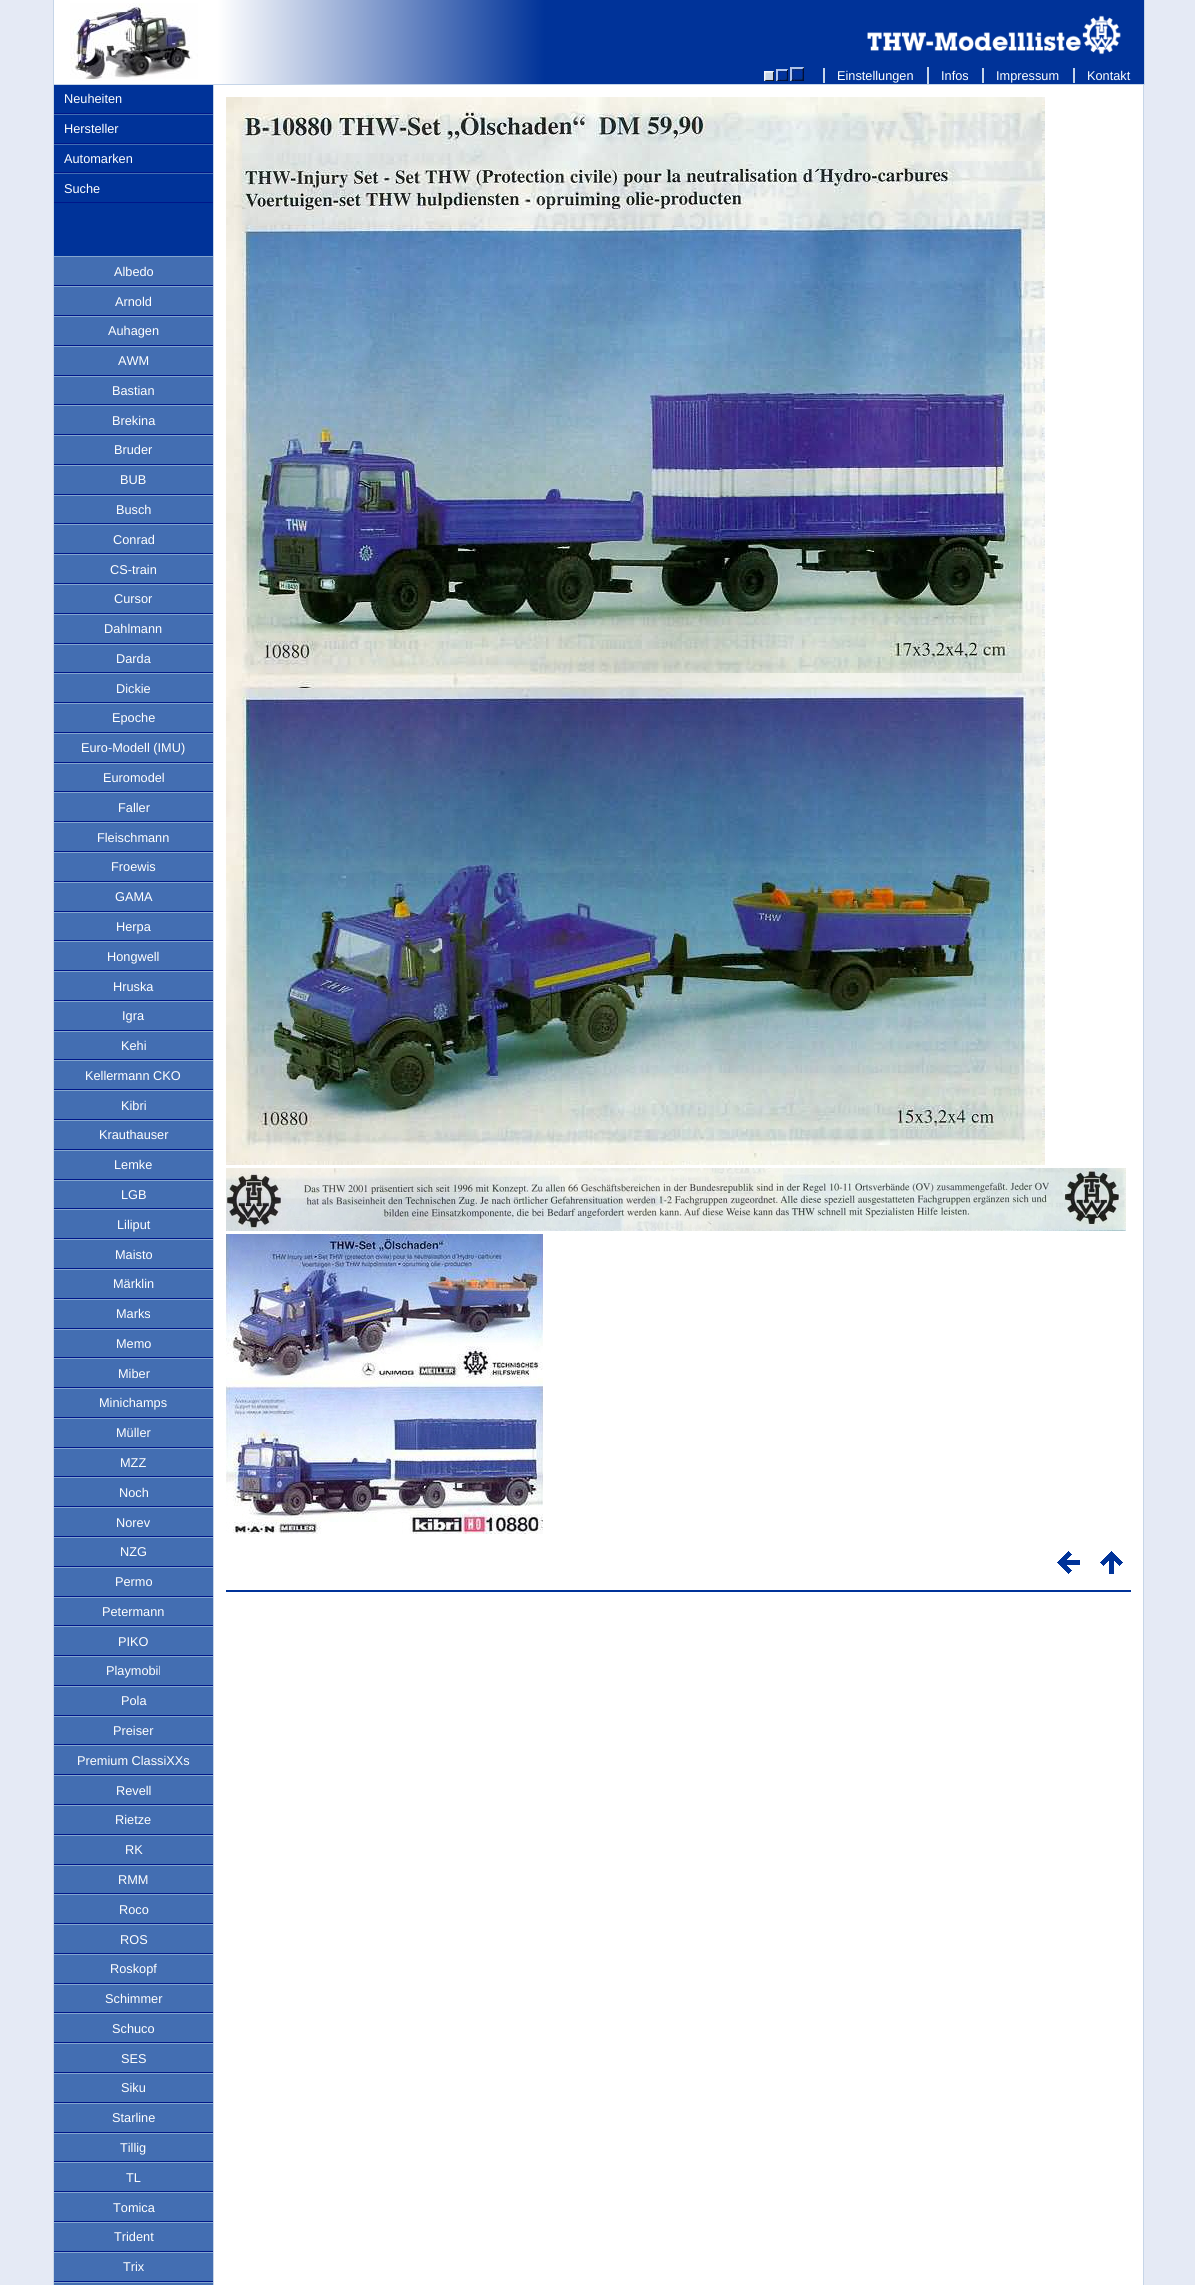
#include <cairo.h>
#include <math.h>
#include <stddef.h>

typedef struct { double x, y; const char *s; } line_t;
typedef struct { double x, y, w, h; unsigned color; } box_t;

static void ink(cairo_t *ctx, unsigned color) {
    cairo_set_source_rgb(ctx, (color >> 16) / 255.0, (color >> 8 & 255) / 255.0, (color & 255) / 255.0);
}

static void paste(cairo_t *ctx, const char *path, double x, double y, double w, double h) {
    cairo_surface_t *image = cairo_image_surface_create_from_png(path);
    cairo_save(ctx);
    cairo_set_source_surface(ctx, image, x, y);
    cairo_rectangle(ctx, x, y, w, h);
    cairo_fill(ctx);
    cairo_restore(ctx);
    cairo_surface_destroy(image);
}

int main(void) {
    cairo_surface_t *surface = cairo_image_surface_create(CAIRO_FORMAT_RGB24, 1195, 2285);
    cairo_t *ctx = cairo_create(surface);
    cairo_font_options_t *options = cairo_font_options_create();
    cairo_font_options_set_hint_metrics(options, CAIRO_HINT_METRICS_OFF);
    cairo_font_options_set_hint_style(options, CAIRO_HINT_STYLE_NONE);
    cairo_set_font_options(ctx, options);
    cairo_set_miter_limit(ctx, 4);
    cairo_pattern_t *gradient;
    ink(ctx, 0xE5EAF5);
    cairo_paint(ctx);
    gradient = cairo_pattern_create_linear(54, 42, 1144, 42);
    cairo_pattern_add_color_stop_rgba(gradient, 0.15, 1, 1, 1, 1);
    cairo_pattern_add_color_stop_rgba(gradient, 0.45, 0, 0.2, 0.6, 1);
    cairo_set_source(ctx, gradient);
    cairo_pattern_destroy(gradient);
    cairo_rectangle(ctx, 54, 0, 1090, 84);
    cairo_fill(ctx);
    {
        static const box_t items[] = {
            {1144, 0, 1, 85, 0xC6D5E8},
            {53, 84, 1, 2201, 0xC6D5E8},
            {1143, 84, 1, 2201, 0xC6D5E8},
            {54, 85, 159, 171, 0x003399},
            {54, 113, 160, 1, 0x001689},
            {54, 114, 160, 1, 0x436EB2},
            {54, 143, 160, 1, 0x001689},
            {54, 144, 160, 1, 0x436EB2},
            {54, 172, 160, 1, 0x001689},
            {54, 173, 160, 1, 0x436EB2},
            {54, 202, 160, 1, 0x001689},
            {54, 256, 160, 1, 0x84A6CE},
            {54, 285, 160, 1, 0x001689},
            {54, 286, 160, 1, 0x84A6CE},
            {54, 315, 160, 1, 0x001689},
            {54, 316, 160, 1, 0x84A6CE},
            {54, 345, 160, 1, 0x001689},
            {54, 346, 160, 1, 0x84A6CE},
            {54, 375, 160, 1, 0x001689},
            {54, 376, 160, 1, 0x84A6CE},
            {54, 404, 160, 1, 0x001689},
            {54, 405, 160, 1, 0x84A6CE},
            {54, 434, 160, 1, 0x001689},
            {54, 435, 160, 1, 0x84A6CE},
            {54, 464, 160, 1, 0x001689},
            {54, 465, 160, 1, 0x84A6CE},
            {54, 494, 160, 1, 0x001689},
            {54, 495, 160, 1, 0x84A6CE},
            {54, 523, 160, 1, 0x001689},
            {54, 524, 160, 1, 0x84A6CE},
            {54, 553, 160, 1, 0x001689},
            {54, 554, 160, 1, 0x84A6CE},
            {54, 583, 160, 1, 0x001689},
            {54, 584, 160, 1, 0x84A6CE},
            {54, 613, 160, 1, 0x001689},
            {54, 614, 160, 1, 0x84A6CE},
            {54, 643, 160, 1, 0x001689},
            {54, 644, 160, 1, 0x84A6CE},
            {54, 672, 160, 1, 0x001689},
            {54, 673, 160, 1, 0x84A6CE},
            {54, 702, 160, 1, 0x001689},
            {54, 703, 160, 1, 0x84A6CE},
            {54, 732, 160, 1, 0x001689},
            {54, 733, 160, 1, 0x84A6CE},
            {54, 762, 160, 1, 0x001689},
            {54, 763, 160, 1, 0x84A6CE},
            {54, 791, 160, 1, 0x001689},
            {54, 792, 160, 1, 0x84A6CE},
            {54, 821, 160, 1, 0x001689},
            {54, 822, 160, 1, 0x84A6CE},
            {54, 851, 160, 1, 0x001689},
            {54, 852, 160, 1, 0x84A6CE},
            {54, 881, 160, 1, 0x001689},
            {54, 882, 160, 1, 0x84A6CE},
            {54, 911, 160, 1, 0x001689},
            {54, 912, 160, 1, 0x84A6CE},
            {54, 940, 160, 1, 0x001689},
            {54, 941, 160, 1, 0x84A6CE},
            {54, 970, 160, 1, 0x001689},
            {54, 971, 160, 1, 0x84A6CE},
            {54, 1000, 160, 1, 0x001689},
            {54, 1001, 160, 1, 0x84A6CE},
            {54, 1030, 160, 1, 0x001689},
            {54, 1031, 160, 1, 0x84A6CE},
            {54, 1059, 160, 1, 0x001689},
            {54, 1060, 160, 1, 0x84A6CE},
            {54, 1089, 160, 1, 0x001689},
            {54, 1090, 160, 1, 0x84A6CE},
            {54, 1119, 160, 1, 0x001689},
            {54, 1120, 160, 1, 0x84A6CE},
            {54, 1149, 160, 1, 0x001689},
            {54, 1150, 160, 1, 0x84A6CE},
            {54, 1179, 160, 1, 0x001689},
            {54, 1180, 160, 1, 0x84A6CE},
            {54, 1208, 160, 1, 0x001689},
            {54, 1209, 160, 1, 0x84A6CE},
            {54, 1238, 160, 1, 0x001689},
            {54, 1239, 160, 1, 0x84A6CE},
            {54, 1268, 160, 1, 0x001689},
            {54, 1269, 160, 1, 0x84A6CE},
            {54, 1298, 160, 1, 0x001689},
            {54, 1299, 160, 1, 0x84A6CE},
            {54, 1328, 160, 1, 0x001689},
            {54, 1329, 160, 1, 0x84A6CE},
            {54, 1357, 160, 1, 0x001689},
            {54, 1358, 160, 1, 0x84A6CE},
            {54, 1387, 160, 1, 0x001689},
            {54, 1388, 160, 1, 0x84A6CE},
            {54, 1417, 160, 1, 0x001689},
            {54, 1418, 160, 1, 0x84A6CE},
            {54, 1447, 160, 1, 0x001689},
            {54, 1448, 160, 1, 0x84A6CE},
            {54, 1476, 160, 1, 0x001689},
            {54, 1477, 160, 1, 0x84A6CE},
            {54, 1506, 160, 1, 0x001689},
            {54, 1507, 160, 1, 0x84A6CE},
            {54, 1536, 160, 1, 0x001689},
            {54, 1537, 160, 1, 0x84A6CE},
            {54, 1566, 160, 1, 0x001689},
            {54, 1567, 160, 1, 0x84A6CE},
            {54, 1596, 160, 1, 0x001689},
            {54, 1597, 160, 1, 0x84A6CE},
            {54, 1625, 160, 1, 0x001689},
            {54, 1626, 160, 1, 0x84A6CE},
            {54, 1655, 160, 1, 0x001689},
            {54, 1656, 160, 1, 0x84A6CE},
            {54, 1685, 160, 1, 0x001689},
            {54, 1686, 160, 1, 0x84A6CE},
            {54, 1715, 160, 1, 0x001689},
            {54, 1716, 160, 1, 0x84A6CE},
            {54, 1744, 160, 1, 0x001689},
            {54, 1745, 160, 1, 0x84A6CE},
            {54, 1774, 160, 1, 0x001689},
            {54, 1775, 160, 1, 0x84A6CE},
            {54, 1804, 160, 1, 0x001689},
            {54, 1805, 160, 1, 0x84A6CE},
            {54, 1834, 160, 1, 0x001689},
            {54, 1835, 160, 1, 0x84A6CE},
            {54, 1864, 160, 1, 0x001689},
            {54, 1865, 160, 1, 0x84A6CE},
            {54, 1893, 160, 1, 0x001689},
            {54, 1894, 160, 1, 0x84A6CE},
            {54, 1923, 160, 1, 0x001689},
            {54, 1924, 160, 1, 0x84A6CE},
            {54, 1953, 160, 1, 0x001689},
            {54, 1954, 160, 1, 0x84A6CE},
            {54, 1983, 160, 1, 0x001689},
            {54, 1984, 160, 1, 0x84A6CE},
            {54, 2012, 160, 1, 0x001689},
            {54, 2013, 160, 1, 0x84A6CE},
            {54, 2042, 160, 1, 0x001689},
            {54, 2043, 160, 1, 0x84A6CE},
            {54, 2072, 160, 1, 0x001689},
            {54, 2073, 160, 1, 0x84A6CE},
            {54, 2102, 160, 1, 0x001689},
            {54, 2103, 160, 1, 0x84A6CE},
            {54, 2132, 160, 1, 0x001689},
            {54, 2133, 160, 1, 0x84A6CE},
            {54, 2161, 160, 1, 0x001689},
            {54, 2162, 160, 1, 0x84A6CE},
            {54, 2191, 160, 1, 0x001689},
            {54, 2192, 160, 1, 0x84A6CE},
            {54, 2221, 160, 1, 0x001689},
            {54, 2222, 160, 1, 0x84A6CE},
            {54, 2251, 160, 1, 0x001689},
            {54, 2252, 160, 1, 0x84A6CE},
            {54, 2281, 160, 1, 0x001689},
            {54, 2283, 160, 2, 0x436EB2},
            {54, 2282, 160, 1, 0x84A6CE},
            {213, 84, 1, 2201, 0xC6D5E8},
            {53, 84, 1092, 1, 0xC6D5E8},
            {53, 0, 1, 85, 0xC6D5E8},
        };
        for (size_t i = 0; i < sizeof items / sizeof *items; i++) {
            ink(ctx, items[i].color);
            cairo_rectangle(ctx, items[i].x, items[i].y, items[i].w, items[i].h);
            cairo_fill(ctx);
        }
    }
    paste(ctx, "media/1.png", 70, 3, 128, 78);
    paste(ctx, "media/2.png", 867, 15, 254, 40);
    paste(ctx, "media/3.png", 764, 71, 10, 10);
    paste(ctx, "media/4.png", 776, 69, 12, 12);
    paste(ctx, "media/5.png", 790, 67, 14, 14);
    cairo_select_font_face(ctx, "Liberation Sans", CAIRO_FONT_SLANT_NORMAL, CAIRO_FONT_WEIGHT_NORMAL);
    cairo_set_font_size(ctx, 12.75);
    ink(ctx, 0xFFFFFF);
    cairo_move_to(ctx, 837, 80);
    cairo_show_text(ctx, "Einstellungen");
    ink(ctx, 0xC6D5E8);
    cairo_rectangle(ctx, 823, 68, 2, 15);
    cairo_fill(ctx);
    cairo_rectangle(ctx, 927, 67, 2, 17);
    cairo_fill(ctx);
    ink(ctx, 0xFFFFFF);
    cairo_move_to(ctx, 941, 80);
    cairo_show_text(ctx, "Infos");
    cairo_move_to(ctx, 996, 80);
    cairo_show_text(ctx, "Impressum");
    ink(ctx, 0xC6D5E8);
    cairo_rectangle(ctx, 982, 68, 2, 15);
    cairo_fill(ctx);
    ink(ctx, 0xFFFFFF);
    cairo_move_to(ctx, 1087, 80);
    cairo_show_text(ctx, "Kontakt");
    ink(ctx, 0xC6D5E8);
    cairo_rectangle(ctx, 1073, 68, 2, 15);
    cairo_fill(ctx);
    ink(ctx, 0xFFFFFF);
    {
        static const line_t items[] = {
            {64, 103, "Neuheiten"},
            {64, 133, "Hersteller"},
            {64, 163, "Automarken"},
            {64, 193, "Suche"},
        };
        for (size_t i = 0; i < sizeof items / sizeof *items; i++) {
            cairo_move_to(ctx, items[i].x, items[i].y);
            cairo_show_text(ctx, items[i].s);
        }
    }
    ink(ctx, 0x436EB2);
    cairo_rectangle(ctx, 54, 257, 159, 28);
    cairo_fill(ctx);
    ink(ctx, 0xFFFFFF);
    cairo_move_to(ctx, 114, 276);
    cairo_show_text(ctx, "Albedo");
    ink(ctx, 0x436EB2);
    cairo_rectangle(ctx, 54, 287, 159, 28);
    cairo_fill(ctx);
    ink(ctx, 0xFFFFFF);
    cairo_move_to(ctx, 115, 306);
    cairo_show_text(ctx, "Arnold");
    ink(ctx, 0x436EB2);
    cairo_rectangle(ctx, 54, 317, 159, 28);
    cairo_fill(ctx);
    ink(ctx, 0xFFFFFF);
    cairo_move_to(ctx, 108, 335);
    cairo_show_text(ctx, "Auhagen");
    ink(ctx, 0x436EB2);
    cairo_rectangle(ctx, 54, 347, 159, 28);
    cairo_fill(ctx);
    ink(ctx, 0xFFFFFF);
    cairo_move_to(ctx, 118, 365);
    cairo_show_text(ctx, "AWM");
    ink(ctx, 0x436EB2);
    cairo_rectangle(ctx, 54, 377, 159, 27);
    cairo_fill(ctx);
    ink(ctx, 0xFFFFFF);
    cairo_move_to(ctx, 112, 395);
    cairo_show_text(ctx, "Bastian");
    ink(ctx, 0x436EB2);
    cairo_rectangle(ctx, 54, 406, 159, 28);
    cairo_fill(ctx);
    ink(ctx, 0xFFFFFF);
    cairo_move_to(ctx, 112, 425);
    cairo_show_text(ctx, "Brekina");
    ink(ctx, 0x436EB2);
    cairo_rectangle(ctx, 54, 436, 159, 28);
    cairo_fill(ctx);
    ink(ctx, 0xFFFFFF);
    cairo_move_to(ctx, 114, 454);
    cairo_show_text(ctx, "Bruder");
    ink(ctx, 0x436EB2);
    cairo_rectangle(ctx, 54, 466, 159, 28);
    cairo_fill(ctx);
    ink(ctx, 0xFFFFFF);
    cairo_move_to(ctx, 120, 484);
    cairo_show_text(ctx, "BUB");
    ink(ctx, 0x436EB2);
    cairo_rectangle(ctx, 54, 496, 159, 27);
    cairo_fill(ctx);
    ink(ctx, 0xFFFFFF);
    cairo_move_to(ctx, 116, 514);
    cairo_show_text(ctx, "Busch");
    ink(ctx, 0x436EB2);
    cairo_rectangle(ctx, 54, 525, 159, 28);
    cairo_fill(ctx);
    ink(ctx, 0xFFFFFF);
    cairo_move_to(ctx, 113, 544);
    cairo_show_text(ctx, "Conrad");
    ink(ctx, 0x436EB2);
    cairo_rectangle(ctx, 54, 555, 159, 28);
    cairo_fill(ctx);
    ink(ctx, 0xFFFFFF);
    cairo_move_to(ctx, 110, 574);
    cairo_show_text(ctx, "CS-train");
    ink(ctx, 0x436EB2);
    cairo_rectangle(ctx, 54, 585, 159, 28);
    cairo_fill(ctx);
    ink(ctx, 0xFFFFFF);
    cairo_move_to(ctx, 114, 603);
    cairo_show_text(ctx, "Cursor");
    ink(ctx, 0x436EB2);
    cairo_rectangle(ctx, 54, 615, 159, 28);
    cairo_fill(ctx);
    ink(ctx, 0xFFFFFF);
    cairo_move_to(ctx, 104, 633);
    cairo_show_text(ctx, "Dahlmann");
    ink(ctx, 0x436EB2);
    cairo_rectangle(ctx, 54, 645, 159, 27);
    cairo_fill(ctx);
    ink(ctx, 0xFFFFFF);
    cairo_move_to(ctx, 116, 663);
    cairo_show_text(ctx, "Darda");
    ink(ctx, 0x436EB2);
    cairo_rectangle(ctx, 54, 674, 159, 28);
    cairo_fill(ctx);
    ink(ctx, 0xFFFFFF);
    cairo_move_to(ctx, 116, 693);
    cairo_show_text(ctx, "Dickie");
    ink(ctx, 0x436EB2);
    cairo_rectangle(ctx, 54, 704, 159, 28);
    cairo_fill(ctx);
    ink(ctx, 0xFFFFFF);
    cairo_move_to(ctx, 112, 722);
    cairo_show_text(ctx, "Epoche");
    ink(ctx, 0x436EB2);
    cairo_rectangle(ctx, 54, 734, 159, 28);
    cairo_fill(ctx);
    ink(ctx, 0xFFFFFF);
    cairo_move_to(ctx, 81, 752);
    cairo_show_text(ctx, "Euro-Modell (IMU)");
    ink(ctx, 0x436EB2);
    cairo_rectangle(ctx, 54, 764, 159, 27);
    cairo_fill(ctx);
    ink(ctx, 0xFFFFFF);
    cairo_move_to(ctx, 103, 782);
    cairo_show_text(ctx, "Euromodel");
    ink(ctx, 0x436EB2);
    cairo_rectangle(ctx, 54, 793, 159, 28);
    cairo_fill(ctx);
    ink(ctx, 0xFFFFFF);
    cairo_move_to(ctx, 118, 812);
    cairo_show_text(ctx, "Faller");
    ink(ctx, 0x436EB2);
    cairo_rectangle(ctx, 54, 823, 159, 28);
    cairo_fill(ctx);
    ink(ctx, 0xFFFFFF);
    cairo_move_to(ctx, 97, 842);
    cairo_show_text(ctx, "Fleischmann");
    ink(ctx, 0x436EB2);
    cairo_rectangle(ctx, 54, 853, 159, 28);
    cairo_fill(ctx);
    ink(ctx, 0xFFFFFF);
    cairo_move_to(ctx, 111, 871);
    cairo_show_text(ctx, "Froewis");
    ink(ctx, 0x436EB2);
    cairo_rectangle(ctx, 54, 883, 159, 28);
    cairo_fill(ctx);
    ink(ctx, 0xFFFFFF);
    cairo_move_to(ctx, 115, 901);
    cairo_show_text(ctx, "GAMA");
    ink(ctx, 0x436EB2);
    cairo_rectangle(ctx, 54, 913, 159, 27);
    cairo_fill(ctx);
    ink(ctx, 0xFFFFFF);
    cairo_move_to(ctx, 116, 931);
    cairo_show_text(ctx, "Herpa");
    ink(ctx, 0x436EB2);
    cairo_rectangle(ctx, 54, 942, 159, 28);
    cairo_fill(ctx);
    ink(ctx, 0xFFFFFF);
    cairo_move_to(ctx, 107, 961);
    cairo_show_text(ctx, "Hongwell");
    ink(ctx, 0x436EB2);
    cairo_rectangle(ctx, 54, 972, 159, 28);
    cairo_fill(ctx);
    ink(ctx, 0xFFFFFF);
    cairo_move_to(ctx, 113, 991);
    cairo_show_text(ctx, "Hruska");
    ink(ctx, 0x436EB2);
    cairo_rectangle(ctx, 54, 1002, 159, 28);
    cairo_fill(ctx);
    ink(ctx, 0xFFFFFF);
    cairo_move_to(ctx, 122, 1020);
    cairo_show_text(ctx, "Igra");
    ink(ctx, 0x436EB2);
    cairo_rectangle(ctx, 54, 1032, 159, 27);
    cairo_fill(ctx);
    ink(ctx, 0xFFFFFF);
    cairo_move_to(ctx, 121, 1050);
    cairo_show_text(ctx, "Kehi");
    ink(ctx, 0x436EB2);
    cairo_rectangle(ctx, 54, 1061, 159, 28);
    cairo_fill(ctx);
    ink(ctx, 0xFFFFFF);
    cairo_move_to(ctx, 85, 1080);
    cairo_show_text(ctx, "Kellermann CKO");
    ink(ctx, 0x436EB2);
    cairo_rectangle(ctx, 54, 1091, 159, 28);
    cairo_fill(ctx);
    ink(ctx, 0xFFFFFF);
    cairo_move_to(ctx, 121, 1110);
    cairo_show_text(ctx, "Kibri");
    ink(ctx, 0x436EB2);
    cairo_rectangle(ctx, 54, 1121, 159, 28);
    cairo_fill(ctx);
    ink(ctx, 0xFFFFFF);
    cairo_move_to(ctx, 99, 1139);
    cairo_show_text(ctx, "Krauthauser");
    ink(ctx, 0x436EB2);
    cairo_rectangle(ctx, 54, 1151, 159, 28);
    cairo_fill(ctx);
    ink(ctx, 0xFFFFFF);
    cairo_move_to(ctx, 114, 1169);
    cairo_show_text(ctx, "Lemke");
    ink(ctx, 0x436EB2);
    cairo_rectangle(ctx, 54, 1181, 159, 27);
    cairo_fill(ctx);
    ink(ctx, 0xFFFFFF);
    cairo_move_to(ctx, 121, 1199);
    cairo_show_text(ctx, "LGB");
    ink(ctx, 0x436EB2);
    cairo_rectangle(ctx, 54, 1210, 159, 28);
    cairo_fill(ctx);
    ink(ctx, 0xFFFFFF);
    cairo_move_to(ctx, 117, 1229);
    cairo_show_text(ctx, "Liliput");
    ink(ctx, 0x436EB2);
    cairo_rectangle(ctx, 54, 1240, 159, 28);
    cairo_fill(ctx);
    ink(ctx, 0xFFFFFF);
    cairo_move_to(ctx, 115, 1259);
    cairo_show_text(ctx, "Maisto");
    ink(ctx, 0x436EB2);
    cairo_rectangle(ctx, 54, 1270, 159, 28);
    cairo_fill(ctx);
    ink(ctx, 0xFFFFFF);
    cairo_move_to(ctx, 113, 1288);
    cairo_show_text(ctx, "Märklin");
    ink(ctx, 0x436EB2);
    cairo_rectangle(ctx, 54, 1300, 159, 28);
    cairo_fill(ctx);
    ink(ctx, 0xFFFFFF);
    cairo_move_to(ctx, 116, 1318);
    cairo_show_text(ctx, "Marks");
    ink(ctx, 0x436EB2);
    cairo_rectangle(ctx, 54, 1330, 159, 27);
    cairo_fill(ctx);
    ink(ctx, 0xFFFFFF);
    cairo_move_to(ctx, 116, 1348);
    cairo_show_text(ctx, "Memo");
    ink(ctx, 0x436EB2);
    cairo_rectangle(ctx, 54, 1359, 159, 28);
    cairo_fill(ctx);
    ink(ctx, 0xFFFFFF);
    cairo_move_to(ctx, 118, 1378);
    cairo_show_text(ctx, "Miber");
    ink(ctx, 0x436EB2);
    cairo_rectangle(ctx, 54, 1389, 159, 28);
    cairo_fill(ctx);
    ink(ctx, 0xFFFFFF);
    cairo_move_to(ctx, 99, 1407);
    cairo_show_text(ctx, "Minichamps");
    ink(ctx, 0x436EB2);
    cairo_rectangle(ctx, 54, 1419, 159, 28);
    cairo_fill(ctx);
    ink(ctx, 0xFFFFFF);
    cairo_move_to(ctx, 116, 1437);
    cairo_show_text(ctx, "Müller");
    ink(ctx, 0x436EB2);
    cairo_rectangle(ctx, 54, 1449, 159, 27);
    cairo_fill(ctx);
    ink(ctx, 0xFFFFFF);
    cairo_move_to(ctx, 120, 1467);
    cairo_show_text(ctx, "MZZ");
    ink(ctx, 0x436EB2);
    cairo_rectangle(ctx, 54, 1478, 159, 28);
    cairo_fill(ctx);
    ink(ctx, 0xFFFFFF);
    cairo_move_to(ctx, 119, 1497);
    cairo_show_text(ctx, "Noch");
    ink(ctx, 0x436EB2);
    cairo_rectangle(ctx, 54, 1508, 159, 28);
    cairo_fill(ctx);
    ink(ctx, 0xFFFFFF);
    cairo_move_to(ctx, 116, 1527);
    cairo_show_text(ctx, "Norev");
    ink(ctx, 0x436EB2);
    cairo_rectangle(ctx, 54, 1538, 159, 28);
    cairo_fill(ctx);
    ink(ctx, 0xFFFFFF);
    cairo_move_to(ctx, 120, 1556);
    cairo_show_text(ctx, "NZG");
    ink(ctx, 0x436EB2);
    cairo_rectangle(ctx, 54, 1568, 159, 28);
    cairo_fill(ctx);
    ink(ctx, 0xFFFFFF);
    cairo_move_to(ctx, 115, 1586);
    cairo_show_text(ctx, "Permo");
    ink(ctx, 0x436EB2);
    cairo_rectangle(ctx, 54, 1598, 159, 27);
    cairo_fill(ctx);
    ink(ctx, 0xFFFFFF);
    cairo_move_to(ctx, 102, 1616);
    cairo_show_text(ctx, "Petermann");
    ink(ctx, 0x436EB2);
    cairo_rectangle(ctx, 54, 1627, 159, 28);
    cairo_fill(ctx);
    ink(ctx, 0xFFFFFF);
    cairo_move_to(ctx, 118, 1646);
    cairo_show_text(ctx, "PIKO");
    ink(ctx, 0x436EB2);
    cairo_rectangle(ctx, 54, 1657, 159, 28);
    cairo_fill(ctx);
    ink(ctx, 0xFFFFFF);
    cairo_move_to(ctx, 106, 1675);
    cairo_show_text(ctx, "Playmobil");
    ink(ctx, 0x436EB2);
    cairo_rectangle(ctx, 54, 1687, 159, 28);
    cairo_fill(ctx);
    ink(ctx, 0xFFFFFF);
    cairo_move_to(ctx, 121, 1705);
    cairo_show_text(ctx, "Pola");
    ink(ctx, 0x436EB2);
    cairo_rectangle(ctx, 54, 1717, 159, 27);
    cairo_fill(ctx);
    ink(ctx, 0xFFFFFF);
    cairo_move_to(ctx, 113, 1735);
    cairo_show_text(ctx, "Preiser");
    ink(ctx, 0x436EB2);
    cairo_rectangle(ctx, 54, 1746, 159, 28);
    cairo_fill(ctx);
    ink(ctx, 0xFFFFFF);
    cairo_move_to(ctx, 77, 1765);
    cairo_show_text(ctx, "Premium ClassiXXs");
    ink(ctx, 0x436EB2);
    cairo_rectangle(ctx, 54, 1776, 159, 28);
    cairo_fill(ctx);
    ink(ctx, 0xFFFFFF);
    cairo_move_to(ctx, 116, 1795);
    cairo_show_text(ctx, "Revell");
    ink(ctx, 0x436EB2);
    cairo_rectangle(ctx, 54, 1806, 159, 28);
    cairo_fill(ctx);
    ink(ctx, 0xFFFFFF);
    cairo_move_to(ctx, 115, 1824);
    cairo_show_text(ctx, "Rietze");
    ink(ctx, 0x436EB2);
    cairo_rectangle(ctx, 54, 1836, 159, 28);
    cairo_fill(ctx);
    ink(ctx, 0xFFFFFF);
    cairo_move_to(ctx, 125, 1854);
    cairo_show_text(ctx, "RK");
    ink(ctx, 0x436EB2);
    cairo_rectangle(ctx, 54, 1866, 159, 27);
    cairo_fill(ctx);
    ink(ctx, 0xFFFFFF);
    cairo_move_to(ctx, 118, 1884);
    cairo_show_text(ctx, "RMM");
    ink(ctx, 0x436EB2);
    cairo_rectangle(ctx, 54, 1895, 159, 28);
    cairo_fill(ctx);
    ink(ctx, 0xFFFFFF);
    cairo_move_to(ctx, 119, 1914);
    cairo_show_text(ctx, "Roco");
    ink(ctx, 0x436EB2);
    cairo_rectangle(ctx, 54, 1925, 159, 28);
    cairo_fill(ctx);
    ink(ctx, 0xFFFFFF);
    cairo_move_to(ctx, 120, 1944);
    cairo_show_text(ctx, "ROS");
    ink(ctx, 0x436EB2);
    cairo_rectangle(ctx, 54, 1955, 159, 28);
    cairo_fill(ctx);
    ink(ctx, 0xFFFFFF);
    cairo_move_to(ctx, 110, 1973);
    cairo_show_text(ctx, "Roskopf");
    ink(ctx, 0x436EB2);
    cairo_rectangle(ctx, 54, 1985, 159, 27);
    cairo_fill(ctx);
    ink(ctx, 0xFFFFFF);
    cairo_move_to(ctx, 105, 2003);
    cairo_show_text(ctx, "Schimmer");
    ink(ctx, 0x436EB2);
    cairo_rectangle(ctx, 54, 2014, 159, 28);
    cairo_fill(ctx);
    ink(ctx, 0xFFFFFF);
    cairo_move_to(ctx, 112, 2033);
    cairo_show_text(ctx, "Schuco");
    ink(ctx, 0x436EB2);
    cairo_rectangle(ctx, 54, 2044, 159, 28);
    cairo_fill(ctx);
    ink(ctx, 0xFFFFFF);
    cairo_move_to(ctx, 121, 2063);
    cairo_show_text(ctx, "SES");
    ink(ctx, 0x436EB2);
    cairo_rectangle(ctx, 54, 2074, 159, 28);
    cairo_fill(ctx);
    ink(ctx, 0xFFFFFF);
    cairo_move_to(ctx, 121, 2092);
    cairo_show_text(ctx, "Siku");
    ink(ctx, 0x436EB2);
    cairo_rectangle(ctx, 54, 2104, 159, 28);
    cairo_fill(ctx);
    ink(ctx, 0xFFFFFF);
    cairo_move_to(ctx, 112, 2122);
    cairo_show_text(ctx, "Starline");
    ink(ctx, 0x436EB2);
    cairo_rectangle(ctx, 54, 2134, 159, 27);
    cairo_fill(ctx);
    ink(ctx, 0xFFFFFF);
    cairo_move_to(ctx, 120, 2152);
    cairo_show_text(ctx, "Tillig");
    ink(ctx, 0x436EB2);
    cairo_rectangle(ctx, 54, 2163, 159, 28);
    cairo_fill(ctx);
    ink(ctx, 0xFFFFFF);
    cairo_move_to(ctx, 126, 2182);
    cairo_show_text(ctx, "TL");
    ink(ctx, 0x436EB2);
    cairo_rectangle(ctx, 54, 2193, 159, 28);
    cairo_fill(ctx);
    ink(ctx, 0xFFFFFF);
    cairo_move_to(ctx, 113, 2212);
    cairo_show_text(ctx, "Tomica");
    ink(ctx, 0x436EB2);
    cairo_rectangle(ctx, 54, 2223, 159, 28);
    cairo_fill(ctx);
    ink(ctx, 0xFFFFFF);
    cairo_move_to(ctx, 114, 2241);
    cairo_show_text(ctx, "Trident");
    ink(ctx, 0x436EB2);
    cairo_rectangle(ctx, 54, 2253, 159, 28);
    cairo_fill(ctx);
    ink(ctx, 0xFFFFFF);
    cairo_move_to(ctx, 123, 2271);
    cairo_show_text(ctx, "Trix");
    cairo_rectangle(ctx, 214, 85, 929, 2200);
    cairo_fill(ctx);
    paste(ctx, "media/6.png", 226, 97, 819, 1068);
    paste(ctx, "media/7.png", 226, 1168, 900, 63);
    paste(ctx, "media/8.png", 226, 1234, 317, 300);
    paste(ctx, "media/9.png", 1057, 1551, 23, 23);
    paste(ctx, "media/10.png", 1100, 1551, 23, 23);
    ink(ctx, 0x003399);
    cairo_rectangle(ctx, 226, 1590, 905, 2);
    cairo_fill(ctx);
    cairo_surface_write_to_png(surface, "image.png");
    cairo_font_options_destroy(options);
    cairo_destroy(ctx);
    cairo_surface_destroy(surface);
    return 0;
}
